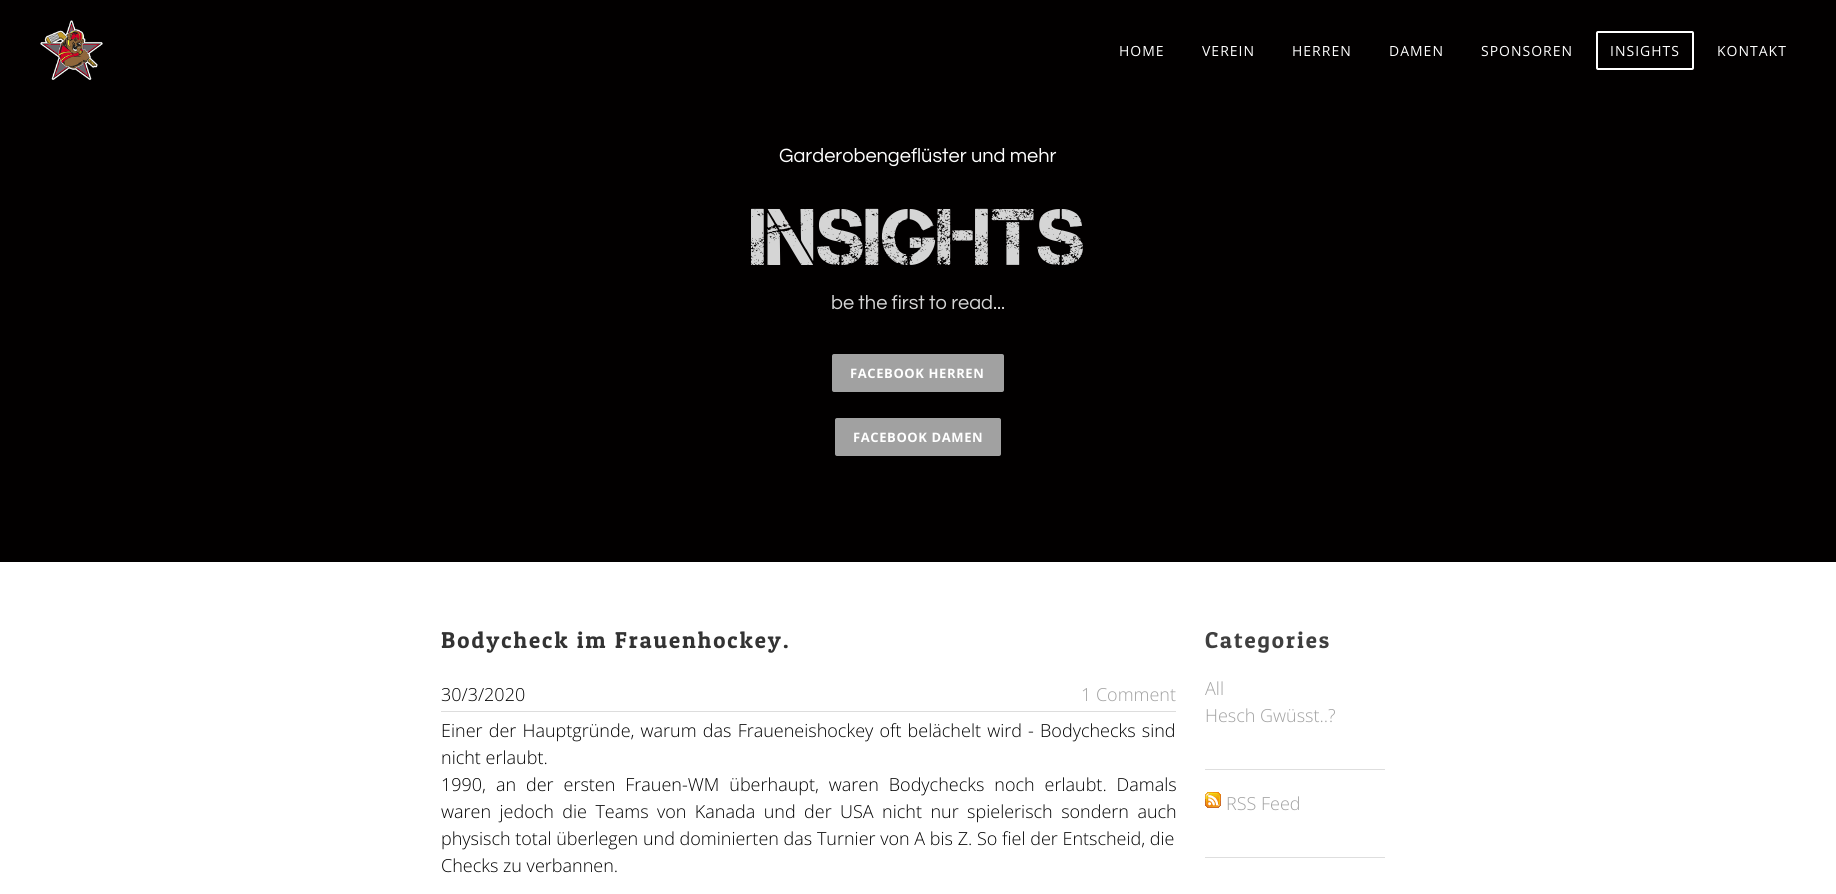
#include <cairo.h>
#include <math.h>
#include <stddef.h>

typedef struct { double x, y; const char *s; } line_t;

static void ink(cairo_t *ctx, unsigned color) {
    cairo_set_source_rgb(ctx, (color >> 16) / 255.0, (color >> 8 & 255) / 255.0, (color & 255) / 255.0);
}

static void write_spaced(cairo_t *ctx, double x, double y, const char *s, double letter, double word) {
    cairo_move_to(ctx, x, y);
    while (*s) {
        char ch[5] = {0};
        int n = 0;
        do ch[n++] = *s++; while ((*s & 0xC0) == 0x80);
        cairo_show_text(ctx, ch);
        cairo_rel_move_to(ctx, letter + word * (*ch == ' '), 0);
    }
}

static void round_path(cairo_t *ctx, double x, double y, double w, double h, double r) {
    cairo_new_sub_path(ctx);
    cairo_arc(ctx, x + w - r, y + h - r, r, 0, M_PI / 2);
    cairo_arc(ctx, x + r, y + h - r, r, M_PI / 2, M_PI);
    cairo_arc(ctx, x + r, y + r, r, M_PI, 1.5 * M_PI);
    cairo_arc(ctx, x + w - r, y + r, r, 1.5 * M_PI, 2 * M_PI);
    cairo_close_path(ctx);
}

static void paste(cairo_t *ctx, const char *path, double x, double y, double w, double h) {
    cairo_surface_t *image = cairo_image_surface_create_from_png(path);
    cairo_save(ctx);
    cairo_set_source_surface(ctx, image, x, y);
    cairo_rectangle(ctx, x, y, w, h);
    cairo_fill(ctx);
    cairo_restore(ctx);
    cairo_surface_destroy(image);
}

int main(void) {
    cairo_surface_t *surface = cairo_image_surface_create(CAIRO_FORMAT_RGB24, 1836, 894);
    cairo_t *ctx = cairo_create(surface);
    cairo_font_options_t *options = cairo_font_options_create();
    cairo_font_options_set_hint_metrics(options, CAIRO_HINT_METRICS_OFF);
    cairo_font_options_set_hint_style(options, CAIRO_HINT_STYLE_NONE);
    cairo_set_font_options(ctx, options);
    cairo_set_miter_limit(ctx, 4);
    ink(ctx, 0xFFFFFF);
    cairo_paint(ctx);
    ink(ctx, 0x020000);
    cairo_rectangle(ctx, 0, 0, 1836, 562);
    cairo_fill(ctx);
    paste(ctx, "media/1.png", 40, 20, 63, 60);
    cairo_select_font_face(ctx, "Open Sans", CAIRO_FONT_SLANT_NORMAL, CAIRO_FONT_WEIGHT_NORMAL);
    cairo_set_font_size(ctx, 14);
    ink(ctx, 0xFFFFFF);
    {
        static const line_t items[] = {
            {1119, 56, "HOME"},
            {1202, 56, "VEREIN"},
            {1292, 56, "HERREN"},
            {1389, 56, "DAMEN"},
            {1481, 56, "SPONSOREN"},
        };
        for (size_t i = 0; i < sizeof items / sizeof *items; i++) {
            write_spaced(ctx, items[i].x, items[i].y, items[i].s, 1, 0);
        }
    }
    round_path(ctx, 1597, 32, 96, 37, 1);
    cairo_stroke(ctx);
    write_spaced(ctx, 1610, 56, "INSIGHTS", 1, 0);
    write_spaced(ctx, 1717, 56, "KONTAKT", 1, 0);
    cairo_select_font_face(ctx, "Questrial", CAIRO_FONT_SLANT_NORMAL, CAIRO_FONT_WEIGHT_NORMAL);
    cairo_set_font_size(ctx, 20);
    cairo_move_to(ctx, 779, 162);
    cairo_show_text(ctx, "Garderobengeflüster und mehr");
    cairo_select_font_face(ctx, "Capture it", CAIRO_FONT_SLANT_NORMAL, CAIRO_FONT_WEIGHT_NORMAL);
    cairo_set_font_size(ctx, 80);
    ink(ctx, 0xD5D5D5);
    write_spaced(ctx, 751, 265, "Insights", 1, 0);
    cairo_select_font_face(ctx, "Questrial", CAIRO_FONT_SLANT_NORMAL, CAIRO_FONT_WEIGHT_NORMAL);
    cairo_set_font_size(ctx, 20);
    cairo_move_to(ctx, 831, 309);
    cairo_show_text(ctx, "be the first to read...");
    ink(ctx, 0xA1A1A1);
    round_path(ctx, 833, 355, 170, 36, 1);
    cairo_fill_preserve(ctx);
    cairo_stroke(ctx);
    cairo_select_font_face(ctx, "Open Sans", CAIRO_FONT_SLANT_NORMAL, CAIRO_FONT_WEIGHT_BOLD);
    cairo_set_font_size(ctx, 13);
    ink(ctx, 0xFFFFFF);
    write_spaced(ctx, 850, 378, "FACEBOOK HERREN", 0.6, 0);
    ink(ctx, 0xA1A1A1);
    round_path(ctx, 836, 419, 164, 36, 1);
    cairo_fill_preserve(ctx);
    cairo_stroke(ctx);
    ink(ctx, 0xFFFFFF);
    write_spaced(ctx, 853, 442, "FACEBOOK DAMEN", 0.6, 0);
    cairo_select_font_face(ctx, "Patua One", CAIRO_FONT_SLANT_NORMAL, CAIRO_FONT_WEIGHT_NORMAL);
    cairo_set_font_size(ctx, 23);
    ink(ctx, 0x333333);
    write_spaced(ctx, 441, 648, "Bodycheck im Frauenhockey.", 2, 0);
    cairo_select_font_face(ctx, "Open Sans Light", CAIRO_FONT_SLANT_NORMAL, CAIRO_FONT_WEIGHT_NORMAL);
    cairo_set_font_size(ctx, 18);
    ink(ctx, 0x000000);
    cairo_move_to(ctx, 441, 701);
    cairo_show_text(ctx, "30/3/2020");
    ink(ctx, 0xA1A1A1);
    cairo_move_to(ctx, 1081, 701);
    cairo_show_text(ctx, "1 Comment");
    ink(ctx, 0xDDDDDD);
    cairo_rectangle(ctx, 441, 711, 735, 1);
    cairo_fill(ctx);
    ink(ctx, 0x000000);
    write_spaced(ctx, 441, 737, "Einer der Hauptgründe, warum das Fraueneishockey oft belächelt wird - Bodychecks sind", 0, 1.5);
    cairo_move_to(ctx, 441, 764);
    cairo_show_text(ctx, "nicht erlaubt.");
    write_spaced(ctx, 441, 791, "1990, an der ersten Frauen-WM überhaupt, waren Bodychecks noch erlaubt. Damals", 0, 5.25);
    write_spaced(ctx, 441, 818, "waren jedoch die Teams von Kanada und der USA nicht nur spielerisch sondern auch", 0, 3.75);
    cairo_move_to(ctx, 441, 845);
    cairo_show_text(ctx, "physisch total überlegen und dominierten das Turnier von A bis Z. So fiel der Entscheid, die");
    cairo_move_to(ctx, 441, 872);
    cairo_show_text(ctx, "Checks zu verbannen.");
    cairo_select_font_face(ctx, "Patua One", CAIRO_FONT_SLANT_NORMAL, CAIRO_FONT_WEIGHT_NORMAL);
    cairo_set_font_size(ctx, 23);
    ink(ctx, 0x3F3F3F);
    write_spaced(ctx, 1205, 648, "Categories", 2, 0);
    cairo_select_font_face(ctx, "Open Sans Light", CAIRO_FONT_SLANT_NORMAL, CAIRO_FONT_WEIGHT_NORMAL);
    cairo_set_font_size(ctx, 18);
    ink(ctx, 0xA1A1A1);
    cairo_move_to(ctx, 1205, 695);
    cairo_show_text(ctx, "All");
    cairo_move_to(ctx, 1205, 722);
    cairo_show_text(ctx, "Hesch Gwüsst..?");
    ink(ctx, 0xDEDEDE);
    cairo_rectangle(ctx, 1205, 769, 180, 1);
    cairo_fill(ctx);
    paste(ctx, "media/2.png", 1205, 792, 16, 16);
    ink(ctx, 0xA1A1A1);
    cairo_move_to(ctx, 1226, 810);
    cairo_show_text(ctx, "RSS Feed");
    ink(ctx, 0xDEDEDE);
    cairo_rectangle(ctx, 1205, 857, 180, 1);
    cairo_fill(ctx);
    cairo_surface_write_to_png(surface, "image.png");
    cairo_font_options_destroy(options);
    cairo_destroy(ctx);
    cairo_surface_destroy(surface);
    return 0;
}
